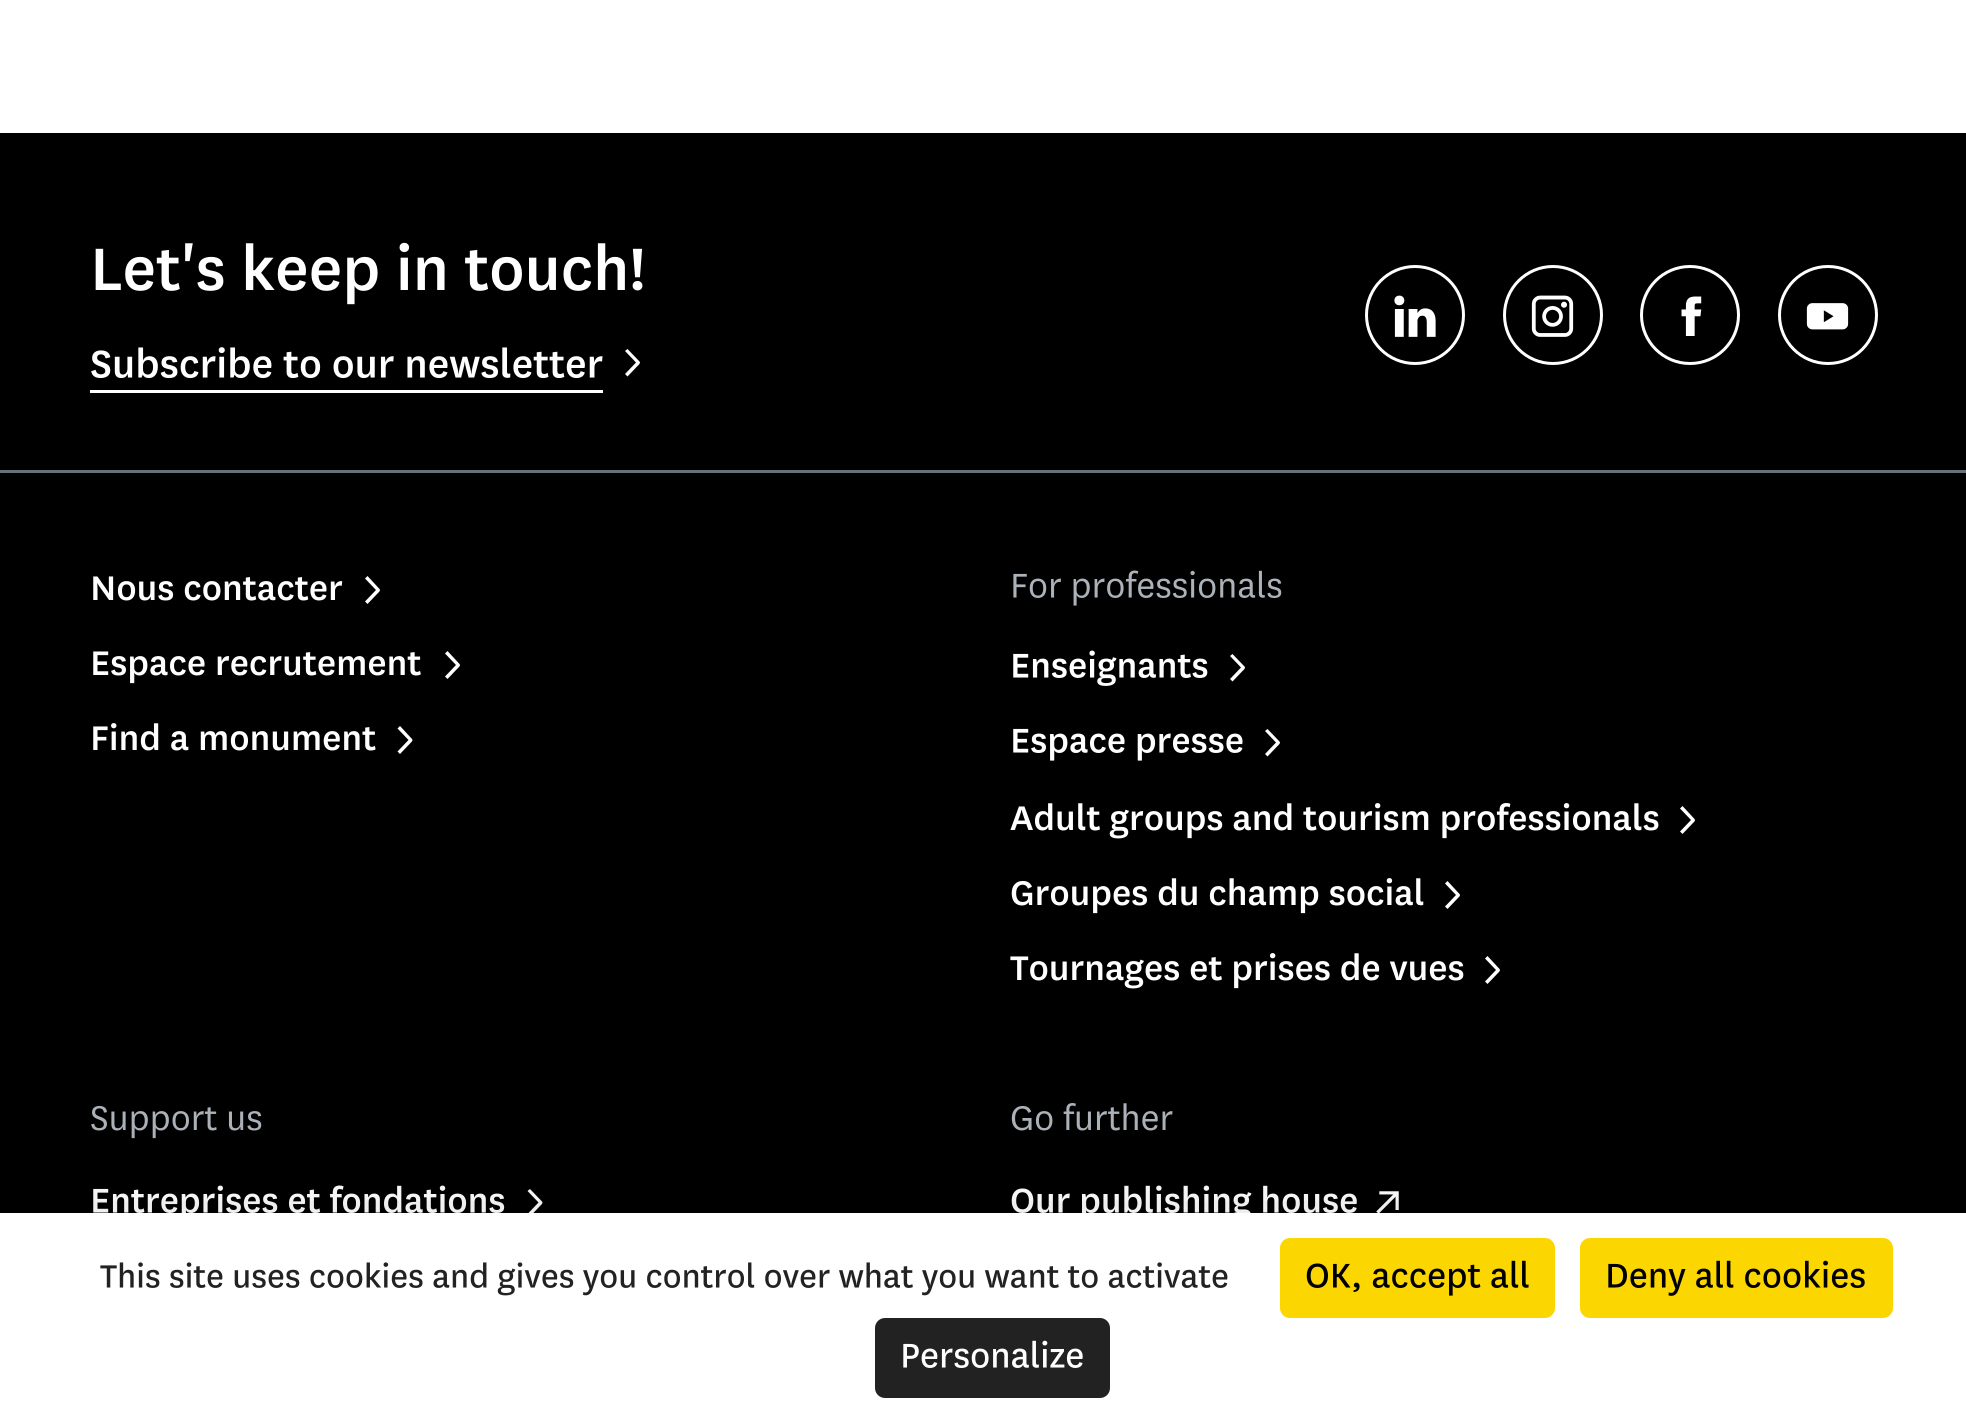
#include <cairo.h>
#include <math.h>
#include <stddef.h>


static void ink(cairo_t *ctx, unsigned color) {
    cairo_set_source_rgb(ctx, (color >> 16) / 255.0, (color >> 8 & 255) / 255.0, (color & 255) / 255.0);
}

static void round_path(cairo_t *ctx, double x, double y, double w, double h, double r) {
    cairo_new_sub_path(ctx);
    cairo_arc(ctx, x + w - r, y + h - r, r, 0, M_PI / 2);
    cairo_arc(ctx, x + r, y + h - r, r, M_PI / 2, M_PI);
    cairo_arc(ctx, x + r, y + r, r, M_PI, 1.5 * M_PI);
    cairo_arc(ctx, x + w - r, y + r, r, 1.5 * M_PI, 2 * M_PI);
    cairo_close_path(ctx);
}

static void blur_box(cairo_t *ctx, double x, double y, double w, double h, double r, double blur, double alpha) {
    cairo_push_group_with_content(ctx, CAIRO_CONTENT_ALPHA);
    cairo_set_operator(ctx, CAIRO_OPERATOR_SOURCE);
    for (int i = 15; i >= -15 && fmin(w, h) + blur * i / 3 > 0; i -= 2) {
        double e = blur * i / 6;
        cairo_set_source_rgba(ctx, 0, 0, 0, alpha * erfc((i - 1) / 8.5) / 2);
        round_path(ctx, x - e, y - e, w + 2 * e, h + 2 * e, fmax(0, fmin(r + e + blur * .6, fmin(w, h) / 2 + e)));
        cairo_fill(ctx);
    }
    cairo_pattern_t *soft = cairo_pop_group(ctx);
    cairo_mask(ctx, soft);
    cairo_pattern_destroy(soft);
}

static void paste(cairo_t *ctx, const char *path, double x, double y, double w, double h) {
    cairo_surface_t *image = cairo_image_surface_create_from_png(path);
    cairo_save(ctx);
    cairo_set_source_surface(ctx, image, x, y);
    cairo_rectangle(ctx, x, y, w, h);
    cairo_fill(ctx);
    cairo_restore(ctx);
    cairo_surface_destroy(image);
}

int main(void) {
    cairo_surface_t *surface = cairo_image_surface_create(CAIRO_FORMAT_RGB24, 1966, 1421);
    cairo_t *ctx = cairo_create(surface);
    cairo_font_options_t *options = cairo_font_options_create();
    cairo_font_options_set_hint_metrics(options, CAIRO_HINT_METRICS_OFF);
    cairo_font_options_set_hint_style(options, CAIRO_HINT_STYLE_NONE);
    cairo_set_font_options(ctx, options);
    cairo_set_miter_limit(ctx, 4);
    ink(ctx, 0xFFFFFF);
    cairo_paint(ctx);
    ink(ctx, 0x000000);
    cairo_rectangle(ctx, 0, 133, 1966, 1080);
    cairo_fill(ctx);
    ink(ctx, 0x68727D);
    cairo_rectangle(ctx, 0, 470, 1966, 3);
    cairo_fill(ctx);
    paste(ctx, "media/1.png", 95, 242, 548, 63);
    paste(ctx, "media/2.png", 91, 347, 512, 32);
    ink(ctx, 0xFFFFFF);
    cairo_new_path(ctx);
    cairo_move_to(ctx, 639.5, 361.5);
    cairo_curve_to(ctx, 641, 363, 638.5, 365, 637.5, 366);
    cairo_line_to(ctx, 627.5, 376.5);
    cairo_line_to(ctx, 625, 374);
    cairo_line_to(ctx, 636, 362.5);
    cairo_line_to(ctx, 625, 351);
    cairo_line_to(ctx, 627.5, 349);
    cairo_close_path(ctx);
    cairo_fill(ctx);
    cairo_rectangle(ctx, 90, 390, 513, 3);
    cairo_fill(ctx);
    cairo_arc(ctx, 1415, 315, 48.5, 0, 2 * M_PI);
    cairo_set_line_width(ctx, 3);
    cairo_stroke(ctx);
    paste(ctx, "media/3.png", 1394, 295, 42, 42);
    cairo_arc(ctx, 1553, 315, 48.5, 0, 2 * M_PI);
    cairo_stroke(ctx);
    paste(ctx, "media/4.png", 1531, 295, 43, 42);
    cairo_arc(ctx, 1690, 315, 48.5, 0, 2 * M_PI);
    cairo_stroke(ctx);
    paste(ctx, "media/5.png", 1681, 296, 21, 40);
    cairo_arc(ctx, 1828, 315, 48.5, 0, 2 * M_PI);
    cairo_stroke(ctx);
    paste(ctx, "media/6.png", 1806, 303, 43, 27);
    paste(ctx, "media/7.png", 93, 576, 250, 25);
    cairo_new_path(ctx);
    cairo_move_to(ctx, 379.5, 589);
    cairo_curve_to(ctx, 381, 590.5, 378.5, 592.5, 377.5, 593.5);
    cairo_line_to(ctx, 367.5, 604);
    cairo_line_to(ctx, 365, 601.5);
    cairo_line_to(ctx, 376, 590);
    cairo_line_to(ctx, 365, 578.5);
    cairo_line_to(ctx, 367.5, 576);
    cairo_close_path(ctx);
    cairo_fill(ctx);
    paste(ctx, "media/8.png", 93, 651, 328, 33);
    cairo_new_path(ctx);
    cairo_move_to(ctx, 459.5, 664);
    cairo_curve_to(ctx, 461, 665.5, 458.5, 667.5, 457.5, 668.5);
    cairo_line_to(ctx, 447.5, 679);
    cairo_line_to(ctx, 445, 676.5);
    cairo_line_to(ctx, 456, 665);
    cairo_line_to(ctx, 445, 653.5);
    cairo_line_to(ctx, 447.5, 651);
    cairo_close_path(ctx);
    cairo_fill(ctx);
    paste(ctx, "media/9.png", 93, 723, 283, 28);
    cairo_new_path(ctx);
    cairo_move_to(ctx, 412, 739);
    cairo_curve_to(ctx, 413.5, 740.5, 411, 742.5, 410, 743.5);
    cairo_line_to(ctx, 400, 754);
    cairo_line_to(ctx, 397.5, 751.5);
    cairo_line_to(ctx, 408.5, 740);
    cairo_line_to(ctx, 397.5, 728.5);
    cairo_line_to(ctx, 400, 726);
    cairo_close_path(ctx);
    cairo_fill(ctx);
    paste(ctx, "media/10.png", 1013, 570, 269, 36);
    paste(ctx, "media/11.png", 1013, 650, 195, 36);
    cairo_new_path(ctx);
    cairo_move_to(ctx, 1244.5, 666.5);
    cairo_curve_to(ctx, 1246, 668, 1243.5, 670, 1242.5, 671);
    cairo_line_to(ctx, 1232.5, 681.5);
    cairo_line_to(ctx, 1230, 679);
    cairo_line_to(ctx, 1241, 667.5);
    cairo_line_to(ctx, 1230, 656);
    cairo_line_to(ctx, 1232.5, 654);
    cairo_close_path(ctx);
    cairo_fill(ctx);
    paste(ctx, "media/12.png", 1013, 728, 230, 33);
    cairo_new_path(ctx);
    cairo_move_to(ctx, 1279.5, 741.5);
    cairo_curve_to(ctx, 1281, 743, 1278.5, 745, 1277.5, 746);
    cairo_line_to(ctx, 1267.5, 756.5);
    cairo_line_to(ctx, 1265, 754);
    cairo_line_to(ctx, 1276, 742.5);
    cairo_line_to(ctx, 1265, 731);
    cairo_line_to(ctx, 1267.5, 729);
    cairo_close_path(ctx);
    cairo_fill(ctx);
    paste(ctx, "media/13.png", 1010, 803, 649, 36);
    cairo_new_path(ctx);
    cairo_move_to(ctx, 1694.5, 819);
    cairo_curve_to(ctx, 1696, 820.5, 1693.5, 822.5, 1692.5, 823.5);
    cairo_line_to(ctx, 1682.5, 834);
    cairo_line_to(ctx, 1680, 831.5);
    cairo_line_to(ctx, 1691, 820);
    cairo_line_to(ctx, 1680, 808.5);
    cairo_line_to(ctx, 1682.5, 806);
    cairo_close_path(ctx);
    cairo_fill(ctx);
    paste(ctx, "media/14.png", 1011, 878, 413, 36);
    cairo_new_path(ctx);
    cairo_move_to(ctx, 1459.5, 894);
    cairo_curve_to(ctx, 1461, 895.5, 1458.5, 897.5, 1457.5, 898.5);
    cairo_line_to(ctx, 1447.5, 909);
    cairo_line_to(ctx, 1445, 906.5);
    cairo_line_to(ctx, 1456, 895);
    cairo_line_to(ctx, 1445, 883.5);
    cairo_line_to(ctx, 1447.5, 881);
    cairo_close_path(ctx);
    cairo_fill(ctx);
    paste(ctx, "media/15.png", 1010, 953, 454, 36);
    cairo_new_path(ctx);
    cairo_move_to(ctx, 1499.5, 969);
    cairo_curve_to(ctx, 1501, 970.5, 1498.5, 972.5, 1497.5, 973.5);
    cairo_line_to(ctx, 1487.5, 984);
    cairo_line_to(ctx, 1485, 981.5);
    cairo_line_to(ctx, 1496, 970);
    cairo_line_to(ctx, 1485, 958.5);
    cairo_line_to(ctx, 1487.5, 956);
    cairo_close_path(ctx);
    cairo_fill(ctx);
    paste(ctx, "media/16.png", 91, 1105, 171, 34);
    paste(ctx, "media/17.png", 93, 1185, 412, 28);
    cairo_new_path(ctx);
    cairo_move_to(ctx, 542, 1201.5);
    cairo_curve_to(ctx, 543.5, 1203, 541, 1205, 540, 1206);
    cairo_line_to(ctx, 530, 1216.5);
    cairo_line_to(ctx, 527.5, 1214);
    cairo_line_to(ctx, 538.5, 1202.5);
    cairo_line_to(ctx, 527.5, 1191);
    cairo_line_to(ctx, 530, 1189);
    cairo_close_path(ctx);
    cairo_fill(ctx);
    paste(ctx, "media/18.png", 1011, 1103, 162, 28);
    paste(ctx, "media/19.png", 1011, 1185, 346, 28);
    paste(ctx, "media/20.png", 1376, 1191, 23, 22);
    ink(ctx, 0x000000);
    blur_box(ctx, 0, 1263, 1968, 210, 0, 75, 0.25);
    ink(ctx, 0xFFFFFF);
    cairo_rectangle(ctx, 0, 1213, 1966, 208);
    cairo_fill(ctx);
    paste(ctx, "media/21.png", 100, 1262, 1128, 34);
    ink(ctx, 0xFBD600);
    round_path(ctx, 1280, 1238, 275, 80, 10);
    cairo_fill(ctx);
    paste(ctx, "media/22.png", 1306, 1260, 223, 36);
    round_path(ctx, 1580, 1238, 313, 80, 10);
    cairo_fill(ctx);
    paste(ctx, "media/23.png", 1608, 1260, 257, 36);
    ink(ctx, 0x222222);
    round_path(ctx, 875, 1318, 235, 80, 10);
    cairo_fill(ctx);
    paste(ctx, "media/24.png", 903, 1340, 180, 28);
    cairo_surface_write_to_png(surface, "image.png");
    cairo_font_options_destroy(options);
    cairo_destroy(ctx);
    cairo_surface_destroy(surface);
    return 0;
}
